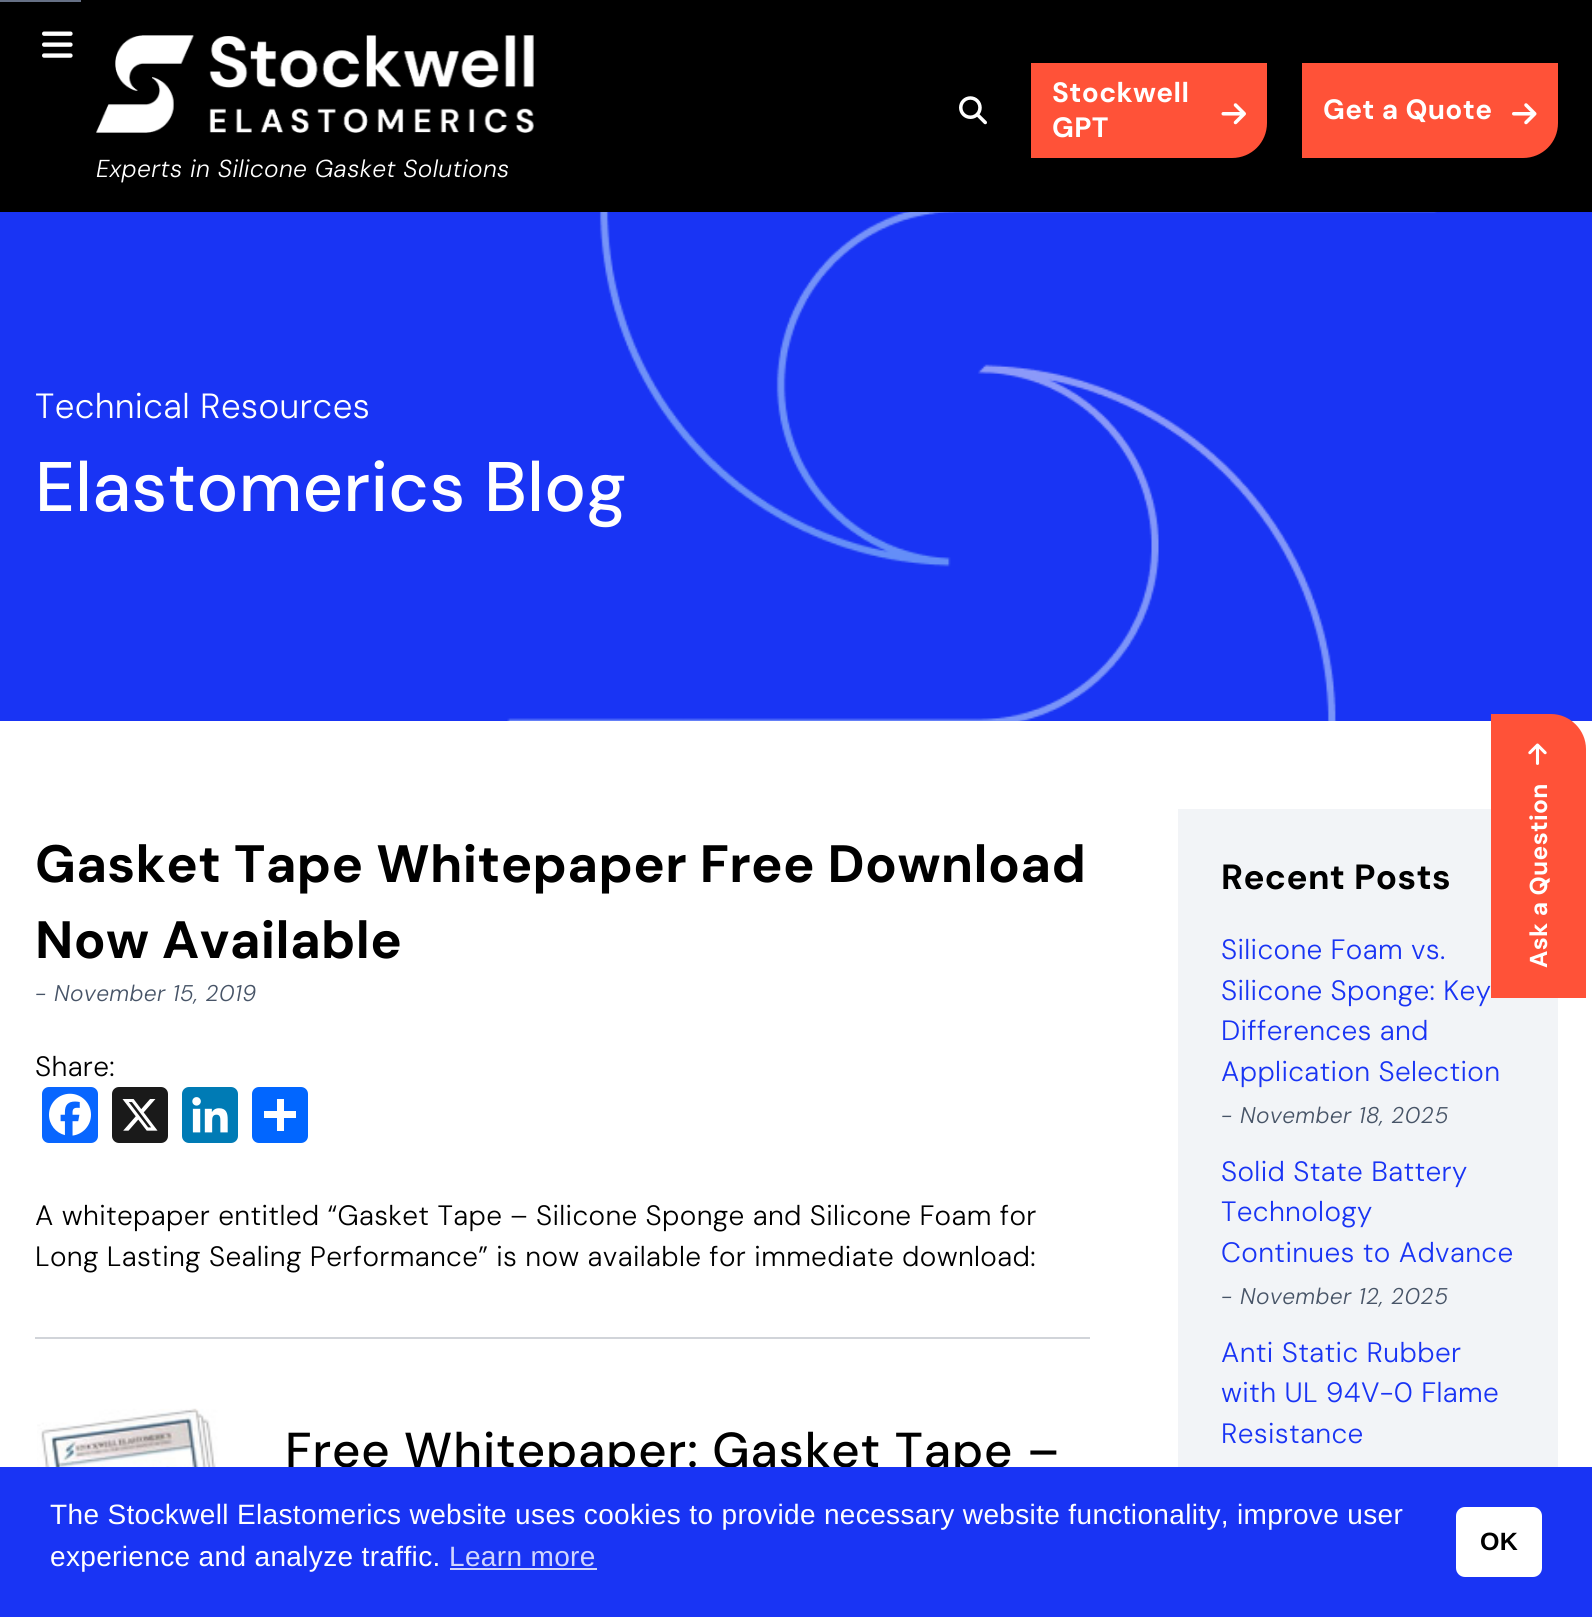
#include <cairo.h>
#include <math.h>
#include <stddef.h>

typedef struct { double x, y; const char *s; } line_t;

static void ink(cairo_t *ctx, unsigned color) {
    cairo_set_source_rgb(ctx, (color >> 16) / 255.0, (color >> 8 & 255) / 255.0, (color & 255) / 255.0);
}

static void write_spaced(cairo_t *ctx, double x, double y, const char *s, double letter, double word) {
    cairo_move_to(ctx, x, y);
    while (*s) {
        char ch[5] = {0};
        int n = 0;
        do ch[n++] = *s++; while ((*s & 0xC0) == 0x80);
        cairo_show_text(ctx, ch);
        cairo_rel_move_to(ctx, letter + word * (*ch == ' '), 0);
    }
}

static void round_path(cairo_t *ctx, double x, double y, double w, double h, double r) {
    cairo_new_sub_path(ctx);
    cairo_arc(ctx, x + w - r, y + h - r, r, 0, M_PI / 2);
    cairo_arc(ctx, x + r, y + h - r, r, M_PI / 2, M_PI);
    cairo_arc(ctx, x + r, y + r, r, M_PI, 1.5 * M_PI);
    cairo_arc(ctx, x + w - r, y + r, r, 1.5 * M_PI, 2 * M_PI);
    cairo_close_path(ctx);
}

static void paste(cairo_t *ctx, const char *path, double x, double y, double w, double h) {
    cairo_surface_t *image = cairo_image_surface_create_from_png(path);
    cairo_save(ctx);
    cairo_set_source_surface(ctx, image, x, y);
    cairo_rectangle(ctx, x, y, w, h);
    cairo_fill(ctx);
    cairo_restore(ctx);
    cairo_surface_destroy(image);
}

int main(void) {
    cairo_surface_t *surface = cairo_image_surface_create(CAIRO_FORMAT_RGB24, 1592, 1617);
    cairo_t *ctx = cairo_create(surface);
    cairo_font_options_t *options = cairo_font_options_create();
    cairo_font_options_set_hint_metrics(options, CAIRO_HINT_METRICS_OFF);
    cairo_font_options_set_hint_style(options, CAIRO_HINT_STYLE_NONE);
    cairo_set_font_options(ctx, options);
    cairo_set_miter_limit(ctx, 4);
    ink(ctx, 0xFFFFFF);
    cairo_paint(ctx);
    ink(ctx, 0x000000);
    cairo_rectangle(ctx, 0, 0, 1592, 212);
    cairo_fill(ctx);
    ink(ctx, 0x667085);
    cairo_rectangle(ctx, 0, 0, 81, 2);
    cairo_fill(ctx);
    paste(ctx, "media/1.png", 42, 31, 31, 27);
    paste(ctx, "media/2.png", 959, 96, 28, 29);
    ink(ctx, 0xFF5238);
    cairo_new_path(ctx);
    cairo_move_to(ctx, 1031, 63);
    cairo_line_to(ctx, 1267, 63);
    cairo_line_to(ctx, 1267, 123);
    cairo_curve_to(ctx, 1267, 142.5, 1251.5, 158, 1232, 158);
    cairo_line_to(ctx, 1031, 158);
    cairo_close_path(ctx);
    cairo_fill(ctx);
    cairo_select_font_face(ctx, "DM Sans", CAIRO_FONT_SLANT_NORMAL, CAIRO_FONT_WEIGHT_BOLD);
    cairo_set_font_size(ctx, 28);
    ink(ctx, 0xFFFFFF);
    write_spaced(ctx, 1052, 102, "Stockwell", 0.35, 0);
    paste(ctx, "media/3.png", 1221, 103, 25, 22);
    write_spaced(ctx, 1052, 137, "GPT", 0.35, 0);
    ink(ctx, 0xFF5238);
    cairo_new_path(ctx);
    cairo_move_to(ctx, 1302, 63);
    cairo_line_to(ctx, 1558, 63);
    cairo_line_to(ctx, 1558, 123);
    cairo_curve_to(ctx, 1558, 142.5, 1542.5, 158, 1523, 158);
    cairo_line_to(ctx, 1302, 158);
    cairo_close_path(ctx);
    cairo_fill(ctx);
    ink(ctx, 0xFFFFFF);
    write_spaced(ctx, 1323, 119, "Get a Quote", 0.35, 0);
    paste(ctx, "media/4.png", 1512, 103, 25, 22);
    paste(ctx, "media/5.png", 96, 35, 438, 98);
    cairo_select_font_face(ctx, "DM Sans Light", CAIRO_FONT_SLANT_ITALIC, CAIRO_FONT_WEIGHT_NORMAL);
    cairo_set_font_size(ctx, 24.5);
    write_spaced(ctx, 96, 177, "Experts in Silicone Gasket Solutions", 0.35, 0);
    ink(ctx, 0x1934F4);
    cairo_rectangle(ctx, 0, 212, 1592, 509);
    cairo_fill(ctx);
    paste(ctx, "media/6.png", 507, 212, 930, 509);
    cairo_select_font_face(ctx, "DM Sans Light", CAIRO_FONT_SLANT_NORMAL, CAIRO_FONT_WEIGHT_NORMAL);
    cairo_set_font_size(ctx, 35);
    ink(ctx, 0xFFFFFF);
    write_spaced(ctx, 35, 418, "Technical Resources", 0.35, 0);
    cairo_select_font_face(ctx, "DM Sans Medium", CAIRO_FONT_SLANT_NORMAL, CAIRO_FONT_WEIGHT_NORMAL);
    cairo_set_font_size(ctx, 70);
    write_spaced(ctx, 35, 511, "Elastomerics Blog", 0.35, 0);
    cairo_select_font_face(ctx, "DM Sans", CAIRO_FONT_SLANT_NORMAL, CAIRO_FONT_WEIGHT_BOLD);
    cairo_set_font_size(ctx, 52.5);
    ink(ctx, 0x000000);
    write_spaced(ctx, 35, 882, "Gasket Tape Whitepaper Free Download", 0.35, 0);
    write_spaced(ctx, 35, 958, "Now Available", 0.35, 0);
    cairo_select_font_face(ctx, "DM Sans Light", CAIRO_FONT_SLANT_ITALIC, CAIRO_FONT_WEIGHT_NORMAL);
    cairo_set_font_size(ctx, 22.75);
    ink(ctx, 0x475467);
    write_spaced(ctx, 35, 1001, "- November 15, 2019", 0.35, 0);
    cairo_select_font_face(ctx, "DM Sans Light", CAIRO_FONT_SLANT_NORMAL, CAIRO_FONT_WEIGHT_NORMAL);
    cairo_set_font_size(ctx, 28);
    ink(ctx, 0x000000);
    write_spaced(ctx, 35, 1076, "Share:", 0.35, 0);
    ink(ctx, 0x0866FF);
    round_path(ctx, 42, 1087, 56, 56, 7);
    cairo_fill(ctx);
    paste(ctx, "media/7.png", 49, 1093, 42, 43);
    ink(ctx, 0x1A1A1A);
    round_path(ctx, 112, 1087, 56, 56, 7);
    cairo_fill(ctx);
    paste(ctx, "media/8.png", 122, 1099, 36, 32);
    ink(ctx, 0x007BB5);
    round_path(ctx, 182, 1087, 56, 56, 7);
    cairo_fill(ctx);
    paste(ctx, "media/9.png", 192, 1097, 36, 36);
    ink(ctx, 0x0166FF);
    round_path(ctx, 252, 1087, 56, 56, 7);
    cairo_fill(ctx);
    ink(ctx, 0xFFFFFF);
    cairo_rectangle(ctx, 277, 1099, 7, 32);
    cairo_fill(ctx);
    cairo_rectangle(ctx, 264, 1111, 32, 7);
    cairo_fill(ctx);
    ink(ctx, 0x000000);
    write_spaced(ctx, 35, 1225, "A whitepaper entitled “Gasket Tape – Silicone Sponge and Silicone Foam for", 0.35, 0);
    write_spaced(ctx, 35, 1266, "Long Lasting Sealing Performance” is now available for immediate download:", 0.35, 0);
    ink(ctx, 0xD1D4D9);
    cairo_rectangle(ctx, 35, 1337, 1055, 2);
    cairo_fill(ctx);
    paste(ctx, "media/10.png", 37, 1408, 200, 59);
    cairo_select_font_face(ctx, "DM Sans Medium", CAIRO_FONT_SLANT_NORMAL, CAIRO_FONT_WEIGHT_NORMAL);
    cairo_set_font_size(ctx, 49);
    ink(ctx, 0x000000);
    write_spaced(ctx, 285, 1467, "Free Whitepaper: Gasket Tape –", 0.9, 0);
    ink(ctx, 0xF2F4F7);
    cairo_rectangle(ctx, 1178, 809, 380, 658);
    cairo_fill(ctx);
    cairo_select_font_face(ctx, "DM Sans", CAIRO_FONT_SLANT_NORMAL, CAIRO_FONT_WEIGHT_BOLD);
    cairo_set_font_size(ctx, 35);
    ink(ctx, 0x000000);
    write_spaced(ctx, 1221, 889, "Recent Posts", 0.35, 0);
    cairo_select_font_face(ctx, "DM Sans Light", CAIRO_FONT_SLANT_NORMAL, CAIRO_FONT_WEIGHT_NORMAL);
    cairo_set_font_size(ctx, 28);
    ink(ctx, 0x1934F4);
    {
        static const line_t items[] = {
            {1221, 959, "Silicone Foam vs."},
            {1221, 1000, "Silicone Sponge: Key"},
            {1221, 1040, "Differences and"},
            {1221, 1081, "Application Selection"},
        };
        for (size_t i = 0; i < sizeof items / sizeof *items; i++) {
            write_spaced(ctx, items[i].x, items[i].y, items[i].s, 0.35, 0);
        }
    }
    cairo_select_font_face(ctx, "DM Sans Light", CAIRO_FONT_SLANT_ITALIC, CAIRO_FONT_WEIGHT_NORMAL);
    cairo_set_font_size(ctx, 22.75);
    ink(ctx, 0x475467);
    write_spaced(ctx, 1221, 1123, "- November 18, 2025", 0.35, 0);
    cairo_select_font_face(ctx, "DM Sans Light", CAIRO_FONT_SLANT_NORMAL, CAIRO_FONT_WEIGHT_NORMAL);
    cairo_set_font_size(ctx, 28);
    ink(ctx, 0x1934F4);
    {
        static const line_t items[] = {
            {1221, 1181, "Solid State Battery"},
            {1221, 1221, "Technology"},
            {1221, 1262, "Continues to Advance"},
        };
        for (size_t i = 0; i < sizeof items / sizeof *items; i++) {
            write_spaced(ctx, items[i].x, items[i].y, items[i].s, 0.35, 0);
        }
    }
    cairo_select_font_face(ctx, "DM Sans Light", CAIRO_FONT_SLANT_ITALIC, CAIRO_FONT_WEIGHT_NORMAL);
    cairo_set_font_size(ctx, 22.75);
    ink(ctx, 0x475467);
    write_spaced(ctx, 1221, 1304, "- November 12, 2025", 0.35, 0);
    cairo_select_font_face(ctx, "DM Sans Light", CAIRO_FONT_SLANT_NORMAL, CAIRO_FONT_WEIGHT_NORMAL);
    cairo_set_font_size(ctx, 28);
    ink(ctx, 0x1934F4);
    {
        static const line_t items[] = {
            {1221, 1362, "Anti Static Rubber"},
            {1221, 1402, "with UL 94V-0 Flame"},
            {1221, 1443, "Resistance"},
        };
        for (size_t i = 0; i < sizeof items / sizeof *items; i++) {
            write_spaced(ctx, items[i].x, items[i].y, items[i].s, 0.35, 0);
        }
    }
    ink(ctx, 0xFF5238);
    cairo_new_path(ctx);
    cairo_move_to(ctx, 1491, 998);
    cairo_line_to(ctx, 1491, 714);
    cairo_line_to(ctx, 1551, 714);
    cairo_curve_to(ctx, 1570, 714, 1586, 730, 1586, 749);
    cairo_line_to(ctx, 1586, 998);
    cairo_close_path(ctx);
    cairo_fill(ctx);
    paste(ctx, "media/11.png", 1528, 743, 19, 22);
    cairo_select_font_face(ctx, "DM Sans", CAIRO_FONT_SLANT_NORMAL, CAIRO_FONT_WEIGHT_BOLD);
    cairo_set_font_size(ctx, 24.5);
    ink(ctx, 0xFFFFFF);
    cairo_save(ctx);
    cairo_translate(ctx, 1547, 968);
    cairo_rotate(ctx, -90 * M_PI / 180);
    write_spaced(ctx, 0, 0, "Ask a Question", 0.35, 0);
    cairo_restore(ctx);
    ink(ctx, 0x1934F4);
    cairo_rectangle(ctx, 0, 1467, 1592, 150);
    cairo_fill(ctx);
    cairo_select_font_face(ctx, "Liberation Sans", CAIRO_FONT_SLANT_NORMAL, CAIRO_FONT_WEIGHT_NORMAL);
    cairo_set_font_size(ctx, 28);
    ink(ctx, 0xFFFFFF);
    write_spaced(ctx, 50, 1524, "The Stockwell Elastomerics website uses cookies to provide necessary website functionality, improve user", 0.35, 0);
    write_spaced(ctx, 50, 1566, "experience and analyze traffic.", 0.35, 0);
    ink(ctx, 0xD1D6FD);
    write_spaced(ctx, 449, 1566, "Learn more", 0.35, 0);
    cairo_rectangle(ctx, 450, 1568, 147, 2);
    cairo_fill(ctx);
    ink(ctx, 0xFFFFFF);
    round_path(ctx, 1456, 1507, 86, 70, 9);
    cairo_fill(ctx);
    cairo_select_font_face(ctx, "Liberation Sans", CAIRO_FONT_SLANT_NORMAL, CAIRO_FONT_WEIGHT_BOLD);
    cairo_set_font_size(ctx, 25);
    ink(ctx, 0x000000);
    write_spaced(ctx, 1480, 1550, "OK", 0.35, 0);
    cairo_surface_write_to_png(surface, "image.png");
    cairo_font_options_destroy(options);
    cairo_destroy(ctx);
    cairo_surface_destroy(surface);
    return 0;
}
